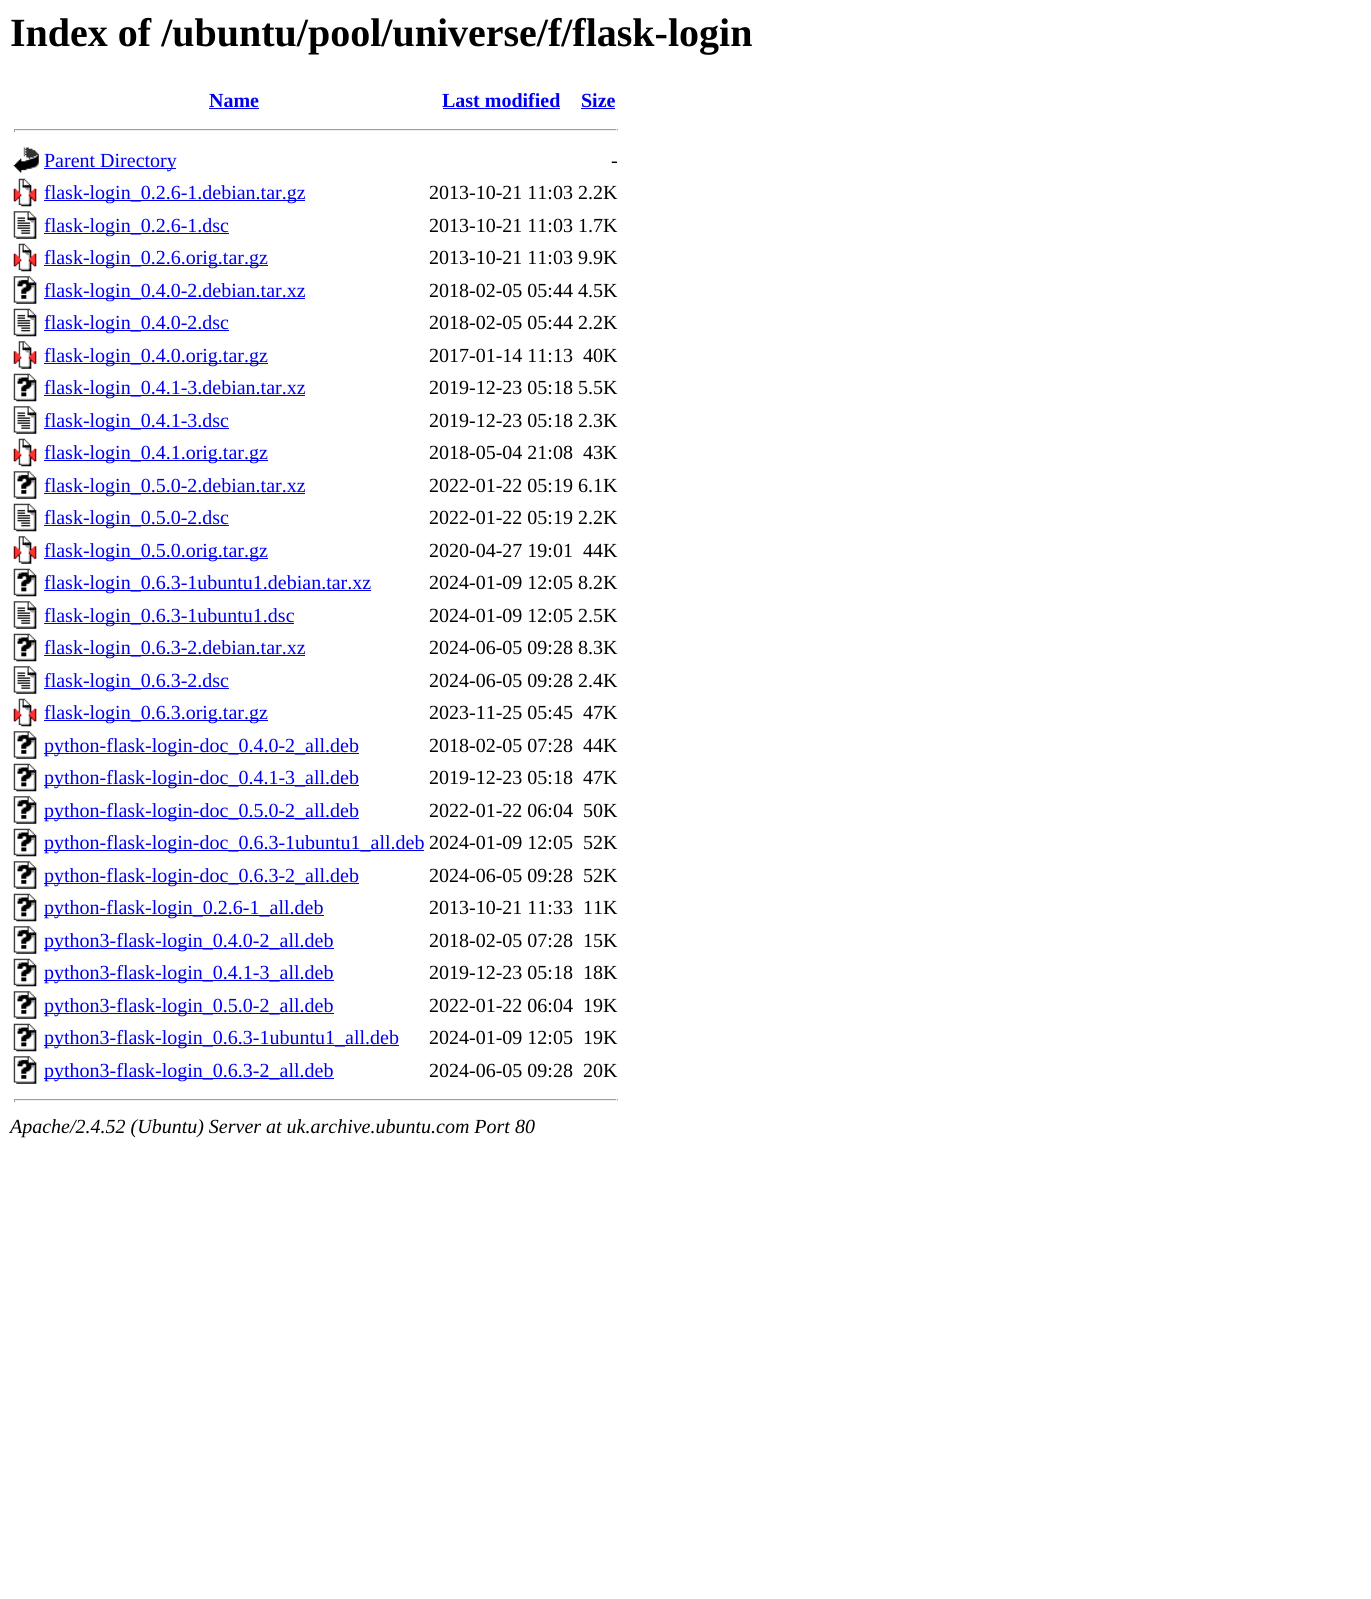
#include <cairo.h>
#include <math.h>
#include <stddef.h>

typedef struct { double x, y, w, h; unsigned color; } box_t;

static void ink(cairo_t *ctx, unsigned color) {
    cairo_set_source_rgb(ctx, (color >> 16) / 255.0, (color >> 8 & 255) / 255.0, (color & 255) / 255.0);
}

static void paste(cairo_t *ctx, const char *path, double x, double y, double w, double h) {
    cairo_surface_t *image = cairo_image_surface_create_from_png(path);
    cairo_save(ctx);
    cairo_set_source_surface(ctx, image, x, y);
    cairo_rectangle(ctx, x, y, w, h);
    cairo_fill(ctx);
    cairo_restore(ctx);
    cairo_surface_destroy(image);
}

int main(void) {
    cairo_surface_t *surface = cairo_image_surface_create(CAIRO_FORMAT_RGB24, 1371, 1599);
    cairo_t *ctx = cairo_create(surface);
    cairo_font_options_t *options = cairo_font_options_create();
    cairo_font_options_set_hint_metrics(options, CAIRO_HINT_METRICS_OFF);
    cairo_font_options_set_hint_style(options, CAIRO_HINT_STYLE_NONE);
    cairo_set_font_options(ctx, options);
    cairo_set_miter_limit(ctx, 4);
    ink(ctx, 0xFFFFFF);
    cairo_paint(ctx);
    cairo_select_font_face(ctx, "Liberation Serif", CAIRO_FONT_SLANT_NORMAL, CAIRO_FONT_WEIGHT_BOLD);
    cairo_set_font_size(ctx, 40);
    ink(ctx, 0x000000);
    cairo_move_to(ctx, 10, 46);
    cairo_show_text(ctx, "Index of /ubuntu/pool/universe/f/flask-login");
    cairo_set_font_size(ctx, 20);
    ink(ctx, 0x0000EE);
    cairo_move_to(ctx, 209, 107);
    cairo_show_text(ctx, "Name");
    cairo_rectangle(ctx, 209, 108, 50, 1);
    cairo_fill(ctx);
    cairo_move_to(ctx, 442, 107);
    cairo_show_text(ctx, "Last modified");
    cairo_rectangle(ctx, 443, 108, 117, 1);
    cairo_fill(ctx);
    cairo_move_to(ctx, 581, 107);
    cairo_show_text(ctx, "Size");
    {
        static const box_t items[] = {
            {581, 108, 34, 1, 0x0000EE},
            {14, 129, 604, 1, 0x9F9F9F},
            {616, 129, 1, 3, 0xEEEEEE},
            {14, 130, 604, 1, 0xEEEEEE},
            {14, 129, 1, 3, 0x9F9F9F},
        };
        for (size_t i = 0; i < sizeof items / sizeof *items; i++) {
            ink(ctx, items[i].color);
            cairo_rectangle(ctx, items[i].x, items[i].y, items[i].w, items[i].h);
            cairo_fill(ctx);
        }
    }
    paste(ctx, "media/1.png", 13, 147, 26, 26);
    ink(ctx, 0x0000EE);
    cairo_rectangle(ctx, 44, 168, 132, 1);
    cairo_fill(ctx);
    cairo_select_font_face(ctx, "Liberation Serif", CAIRO_FONT_SLANT_NORMAL, CAIRO_FONT_WEIGHT_NORMAL);
    cairo_move_to(ctx, 44, 167);
    cairo_show_text(ctx, "Parent Directory");
    ink(ctx, 0x000000);
    cairo_move_to(ctx, 611, 167);
    cairo_show_text(ctx, "-");
    paste(ctx, "media/2.png", 13, 178, 24, 29);
    ink(ctx, 0x0000EE);
    cairo_rectangle(ctx, 44, 200, 261, 1);
    cairo_fill(ctx);
    cairo_move_to(ctx, 44, 199);
    cairo_show_text(ctx, "flask-login_0.2.6-1.debian.tar.gz");
    ink(ctx, 0x000000);
    cairo_move_to(ctx, 429, 199);
    cairo_show_text(ctx, "2013-10-21 11:03 2.2K");
    paste(ctx, "media/3.png", 13, 211, 24, 28);
    ink(ctx, 0x0000EE);
    cairo_rectangle(ctx, 44, 233, 185, 1);
    cairo_fill(ctx);
    cairo_move_to(ctx, 44, 232);
    cairo_show_text(ctx, "flask-login_0.2.6-1.dsc");
    ink(ctx, 0x000000);
    cairo_move_to(ctx, 429, 232);
    cairo_show_text(ctx, "2013-10-21 11:03 1.7K");
    paste(ctx, "media/2.png", 13, 243, 24, 29);
    ink(ctx, 0x0000EE);
    cairo_rectangle(ctx, 44, 265, 224, 1);
    cairo_fill(ctx);
    cairo_move_to(ctx, 44, 264);
    cairo_show_text(ctx, "flask-login_0.2.6.orig.tar.gz");
    ink(ctx, 0x000000);
    cairo_move_to(ctx, 429, 264);
    cairo_show_text(ctx, "2013-10-21 11:03 9.9K");
    paste(ctx, "media/4.png", 13, 276, 24, 28);
    ink(ctx, 0x0000EE);
    cairo_rectangle(ctx, 44, 298, 261, 1);
    cairo_fill(ctx);
    cairo_move_to(ctx, 44, 297);
    cairo_show_text(ctx, "flask-login_0.4.0-2.debian.tar.xz");
    ink(ctx, 0x000000);
    cairo_move_to(ctx, 429, 297);
    cairo_show_text(ctx, "2018-02-05 05:44 4.5K");
    paste(ctx, "media/5.png", 13, 308, 24, 29);
    ink(ctx, 0x0000EE);
    cairo_rectangle(ctx, 44, 330, 185, 1);
    cairo_fill(ctx);
    cairo_move_to(ctx, 44, 329);
    cairo_show_text(ctx, "flask-login_0.4.0-2.dsc");
    ink(ctx, 0x000000);
    cairo_move_to(ctx, 429, 329);
    cairo_show_text(ctx, "2018-02-05 05:44 2.2K");
    paste(ctx, "media/6.png", 13, 341, 24, 28);
    ink(ctx, 0x0000EE);
    cairo_rectangle(ctx, 44, 363, 224, 1);
    cairo_fill(ctx);
    cairo_move_to(ctx, 44, 362);
    cairo_show_text(ctx, "flask-login_0.4.0.orig.tar.gz");
    ink(ctx, 0x000000);
    cairo_move_to(ctx, 429, 362);
    cairo_show_text(ctx, "2017-01-14 11:13");
    cairo_move_to(ctx, 583, 362);
    cairo_show_text(ctx, "40K");
    paste(ctx, "media/7.png", 13, 373, 24, 29);
    ink(ctx, 0x0000EE);
    cairo_rectangle(ctx, 44, 395, 261, 1);
    cairo_fill(ctx);
    cairo_move_to(ctx, 44, 394);
    cairo_show_text(ctx, "flask-login_0.4.1-3.debian.tar.xz");
    ink(ctx, 0x000000);
    cairo_move_to(ctx, 429, 394);
    cairo_show_text(ctx, "2019-12-23 05:18 5.5K");
    paste(ctx, "media/3.png", 13, 406, 24, 28);
    ink(ctx, 0x0000EE);
    cairo_rectangle(ctx, 44, 428, 185, 1);
    cairo_fill(ctx);
    cairo_move_to(ctx, 44, 427);
    cairo_show_text(ctx, "flask-login_0.4.1-3.dsc");
    ink(ctx, 0x000000);
    cairo_move_to(ctx, 429, 427);
    cairo_show_text(ctx, "2019-12-23 05:18 2.3K");
    paste(ctx, "media/2.png", 13, 438, 24, 29);
    ink(ctx, 0x0000EE);
    cairo_rectangle(ctx, 44, 460, 224, 1);
    cairo_fill(ctx);
    cairo_move_to(ctx, 44, 459);
    cairo_show_text(ctx, "flask-login_0.4.1.orig.tar.gz");
    ink(ctx, 0x000000);
    cairo_move_to(ctx, 429, 459);
    cairo_show_text(ctx, "2018-05-04 21:08");
    cairo_move_to(ctx, 583, 459);
    cairo_show_text(ctx, "43K");
    paste(ctx, "media/8.png", 13, 471, 24, 28);
    ink(ctx, 0x0000EE);
    cairo_rectangle(ctx, 44, 493, 261, 1);
    cairo_fill(ctx);
    cairo_move_to(ctx, 44, 492);
    cairo_show_text(ctx, "flask-login_0.5.0-2.debian.tar.xz");
    ink(ctx, 0x000000);
    cairo_move_to(ctx, 429, 492);
    cairo_show_text(ctx, "2022-01-22 05:19 6.1K");
    paste(ctx, "media/5.png", 13, 503, 24, 29);
    ink(ctx, 0x0000EE);
    cairo_rectangle(ctx, 44, 525, 185, 1);
    cairo_fill(ctx);
    cairo_move_to(ctx, 44, 524);
    cairo_show_text(ctx, "flask-login_0.5.0-2.dsc");
    ink(ctx, 0x000000);
    cairo_move_to(ctx, 429, 524);
    cairo_show_text(ctx, "2022-01-22 05:19 2.2K");
    paste(ctx, "media/6.png", 13, 536, 24, 28);
    ink(ctx, 0x0000EE);
    cairo_rectangle(ctx, 44, 558, 224, 1);
    cairo_fill(ctx);
    cairo_move_to(ctx, 44, 557);
    cairo_show_text(ctx, "flask-login_0.5.0.orig.tar.gz");
    ink(ctx, 0x000000);
    cairo_move_to(ctx, 429, 557);
    cairo_show_text(ctx, "2020-04-27 19:01");
    cairo_move_to(ctx, 583, 557);
    cairo_show_text(ctx, "44K");
    paste(ctx, "media/7.png", 13, 568, 24, 29);
    ink(ctx, 0x0000EE);
    cairo_rectangle(ctx, 44, 590, 327, 1);
    cairo_fill(ctx);
    cairo_move_to(ctx, 44, 589);
    cairo_show_text(ctx, "flask-login_0.6.3-1ubuntu1.debian.tar.xz");
    ink(ctx, 0x000000);
    cairo_move_to(ctx, 429, 589);
    cairo_show_text(ctx, "2024-01-09 12:05 8.2K");
    paste(ctx, "media/3.png", 13, 601, 24, 28);
    ink(ctx, 0x0000EE);
    cairo_rectangle(ctx, 44, 623, 250, 1);
    cairo_fill(ctx);
    cairo_move_to(ctx, 44, 622);
    cairo_show_text(ctx, "flask-login_0.6.3-1ubuntu1.dsc");
    ink(ctx, 0x000000);
    cairo_move_to(ctx, 429, 622);
    cairo_show_text(ctx, "2024-01-09 12:05 2.5K");
    paste(ctx, "media/7.png", 13, 633, 24, 29);
    ink(ctx, 0x0000EE);
    cairo_rectangle(ctx, 44, 655, 261, 1);
    cairo_fill(ctx);
    cairo_move_to(ctx, 44, 654);
    cairo_show_text(ctx, "flask-login_0.6.3-2.debian.tar.xz");
    ink(ctx, 0x000000);
    cairo_move_to(ctx, 429, 654);
    cairo_show_text(ctx, "2024-06-05 09:28 8.3K");
    paste(ctx, "media/3.png", 13, 666, 24, 28);
    ink(ctx, 0x0000EE);
    cairo_rectangle(ctx, 44, 688, 185, 1);
    cairo_fill(ctx);
    cairo_move_to(ctx, 44, 687);
    cairo_show_text(ctx, "flask-login_0.6.3-2.dsc");
    ink(ctx, 0x000000);
    cairo_move_to(ctx, 429, 687);
    cairo_show_text(ctx, "2024-06-05 09:28 2.4K");
    paste(ctx, "media/2.png", 13, 698, 24, 29);
    ink(ctx, 0x0000EE);
    cairo_rectangle(ctx, 44, 720, 224, 1);
    cairo_fill(ctx);
    cairo_move_to(ctx, 44, 719);
    cairo_show_text(ctx, "flask-login_0.6.3.orig.tar.gz");
    ink(ctx, 0x000000);
    cairo_move_to(ctx, 429, 719);
    cairo_show_text(ctx, "2023-11-25 05:45");
    cairo_move_to(ctx, 583, 719);
    cairo_show_text(ctx, "47K");
    paste(ctx, "media/8.png", 13, 731, 24, 28);
    ink(ctx, 0x0000EE);
    cairo_rectangle(ctx, 44, 753, 315, 1);
    cairo_fill(ctx);
    cairo_move_to(ctx, 44, 752);
    cairo_show_text(ctx, "python-flask-login-doc_0.4.0-2_all.deb");
    ink(ctx, 0x000000);
    cairo_move_to(ctx, 429, 752);
    cairo_show_text(ctx, "2018-02-05 07:28");
    cairo_move_to(ctx, 583, 752);
    cairo_show_text(ctx, "44K");
    paste(ctx, "media/7.png", 13, 763, 24, 29);
    ink(ctx, 0x0000EE);
    cairo_rectangle(ctx, 44, 785, 315, 1);
    cairo_fill(ctx);
    cairo_move_to(ctx, 44, 784);
    cairo_show_text(ctx, "python-flask-login-doc_0.4.1-3_all.deb");
    ink(ctx, 0x000000);
    cairo_move_to(ctx, 429, 784);
    cairo_show_text(ctx, "2019-12-23 05:18");
    cairo_move_to(ctx, 583, 784);
    cairo_show_text(ctx, "47K");
    paste(ctx, "media/8.png", 13, 796, 24, 28);
    ink(ctx, 0x0000EE);
    cairo_rectangle(ctx, 44, 818, 315, 1);
    cairo_fill(ctx);
    cairo_move_to(ctx, 44, 817);
    cairo_show_text(ctx, "python-flask-login-doc_0.5.0-2_all.deb");
    ink(ctx, 0x000000);
    cairo_move_to(ctx, 429, 817);
    cairo_show_text(ctx, "2022-01-22 06:04");
    cairo_move_to(ctx, 583, 817);
    cairo_show_text(ctx, "50K");
    paste(ctx, "media/7.png", 13, 828, 24, 29);
    ink(ctx, 0x0000EE);
    cairo_rectangle(ctx, 44, 850, 380, 1);
    cairo_fill(ctx);
    cairo_move_to(ctx, 44, 849);
    cairo_show_text(ctx, "python-flask-login-doc_0.6.3-1ubuntu1_all.deb");
    ink(ctx, 0x000000);
    cairo_move_to(ctx, 429, 849);
    cairo_show_text(ctx, "2024-01-09 12:05");
    cairo_move_to(ctx, 583, 849);
    cairo_show_text(ctx, "52K");
    paste(ctx, "media/8.png", 13, 861, 24, 28);
    ink(ctx, 0x0000EE);
    cairo_rectangle(ctx, 44, 883, 315, 1);
    cairo_fill(ctx);
    cairo_move_to(ctx, 44, 882);
    cairo_show_text(ctx, "python-flask-login-doc_0.6.3-2_all.deb");
    ink(ctx, 0x000000);
    cairo_move_to(ctx, 429, 882);
    cairo_show_text(ctx, "2024-06-05 09:28");
    cairo_move_to(ctx, 583, 882);
    cairo_show_text(ctx, "52K");
    paste(ctx, "media/7.png", 13, 893, 24, 29);
    ink(ctx, 0x0000EE);
    cairo_rectangle(ctx, 44, 915, 280, 1);
    cairo_fill(ctx);
    cairo_move_to(ctx, 44, 914);
    cairo_show_text(ctx, "python-flask-login_0.2.6-1_all.deb");
    ink(ctx, 0x000000);
    cairo_move_to(ctx, 429, 914);
    cairo_show_text(ctx, "2013-10-21 11:33");
    cairo_move_to(ctx, 583, 914);
    cairo_show_text(ctx, "11K");
    paste(ctx, "media/8.png", 13, 926, 24, 28);
    ink(ctx, 0x0000EE);
    cairo_rectangle(ctx, 44, 948, 290, 1);
    cairo_fill(ctx);
    cairo_move_to(ctx, 44, 947);
    cairo_show_text(ctx, "python3-flask-login_0.4.0-2_all.deb");
    ink(ctx, 0x000000);
    cairo_move_to(ctx, 429, 947);
    cairo_show_text(ctx, "2018-02-05 07:28");
    cairo_move_to(ctx, 583, 947);
    cairo_show_text(ctx, "15K");
    paste(ctx, "media/7.png", 13, 958, 24, 29);
    ink(ctx, 0x0000EE);
    cairo_rectangle(ctx, 44, 980, 290, 1);
    cairo_fill(ctx);
    cairo_move_to(ctx, 44, 979);
    cairo_show_text(ctx, "python3-flask-login_0.4.1-3_all.deb");
    ink(ctx, 0x000000);
    cairo_move_to(ctx, 429, 979);
    cairo_show_text(ctx, "2019-12-23 05:18");
    cairo_move_to(ctx, 583, 979);
    cairo_show_text(ctx, "18K");
    paste(ctx, "media/8.png", 13, 991, 24, 28);
    ink(ctx, 0x0000EE);
    cairo_rectangle(ctx, 44, 1013, 290, 1);
    cairo_fill(ctx);
    cairo_move_to(ctx, 44, 1012);
    cairo_show_text(ctx, "python3-flask-login_0.5.0-2_all.deb");
    ink(ctx, 0x000000);
    cairo_move_to(ctx, 429, 1012);
    cairo_show_text(ctx, "2022-01-22 06:04");
    cairo_move_to(ctx, 583, 1012);
    cairo_show_text(ctx, "19K");
    paste(ctx, "media/9.png", 13, 1023, 24, 29);
    ink(ctx, 0x0000EE);
    cairo_rectangle(ctx, 44, 1045, 355, 1);
    cairo_fill(ctx);
    cairo_move_to(ctx, 44, 1044);
    cairo_show_text(ctx, "python3-flask-login_0.6.3-1ubuntu1_all.deb");
    ink(ctx, 0x000000);
    cairo_move_to(ctx, 429, 1044);
    cairo_show_text(ctx, "2024-01-09 12:05");
    cairo_move_to(ctx, 583, 1044);
    cairo_show_text(ctx, "19K");
    paste(ctx, "media/8.png", 13, 1056, 24, 28);
    ink(ctx, 0x0000EE);
    cairo_rectangle(ctx, 44, 1078, 290, 1);
    cairo_fill(ctx);
    cairo_move_to(ctx, 44, 1077);
    cairo_show_text(ctx, "python3-flask-login_0.6.3-2_all.deb");
    ink(ctx, 0x000000);
    cairo_move_to(ctx, 429, 1077);
    cairo_show_text(ctx, "2024-06-05 09:28");
    cairo_move_to(ctx, 583, 1077);
    cairo_show_text(ctx, "20K");
    {
        static const box_t items[] = {
            {14, 1099, 604, 1, 0x9F9F9F},
            {616, 1099, 1, 3, 0xEEEEEE},
            {14, 1100, 604, 1, 0xEEEEEE},
            {14, 1099, 1, 3, 0x9F9F9F},
        };
        for (size_t i = 0; i < sizeof items / sizeof *items; i++) {
            ink(ctx, items[i].color);
            cairo_rectangle(ctx, items[i].x, items[i].y, items[i].w, items[i].h);
            cairo_fill(ctx);
        }
    }
    cairo_select_font_face(ctx, "Liberation Serif", CAIRO_FONT_SLANT_ITALIC, CAIRO_FONT_WEIGHT_NORMAL);
    ink(ctx, 0x000000);
    cairo_move_to(ctx, 10, 1133);
    cairo_show_text(ctx, "Apache/2.4.52 (Ubuntu) Server at uk.archive.ubuntu.com Port 80");
    cairo_surface_write_to_png(surface, "image.png");
    cairo_font_options_destroy(options);
    cairo_destroy(ctx);
    cairo_surface_destroy(surface);
    return 0;
}
